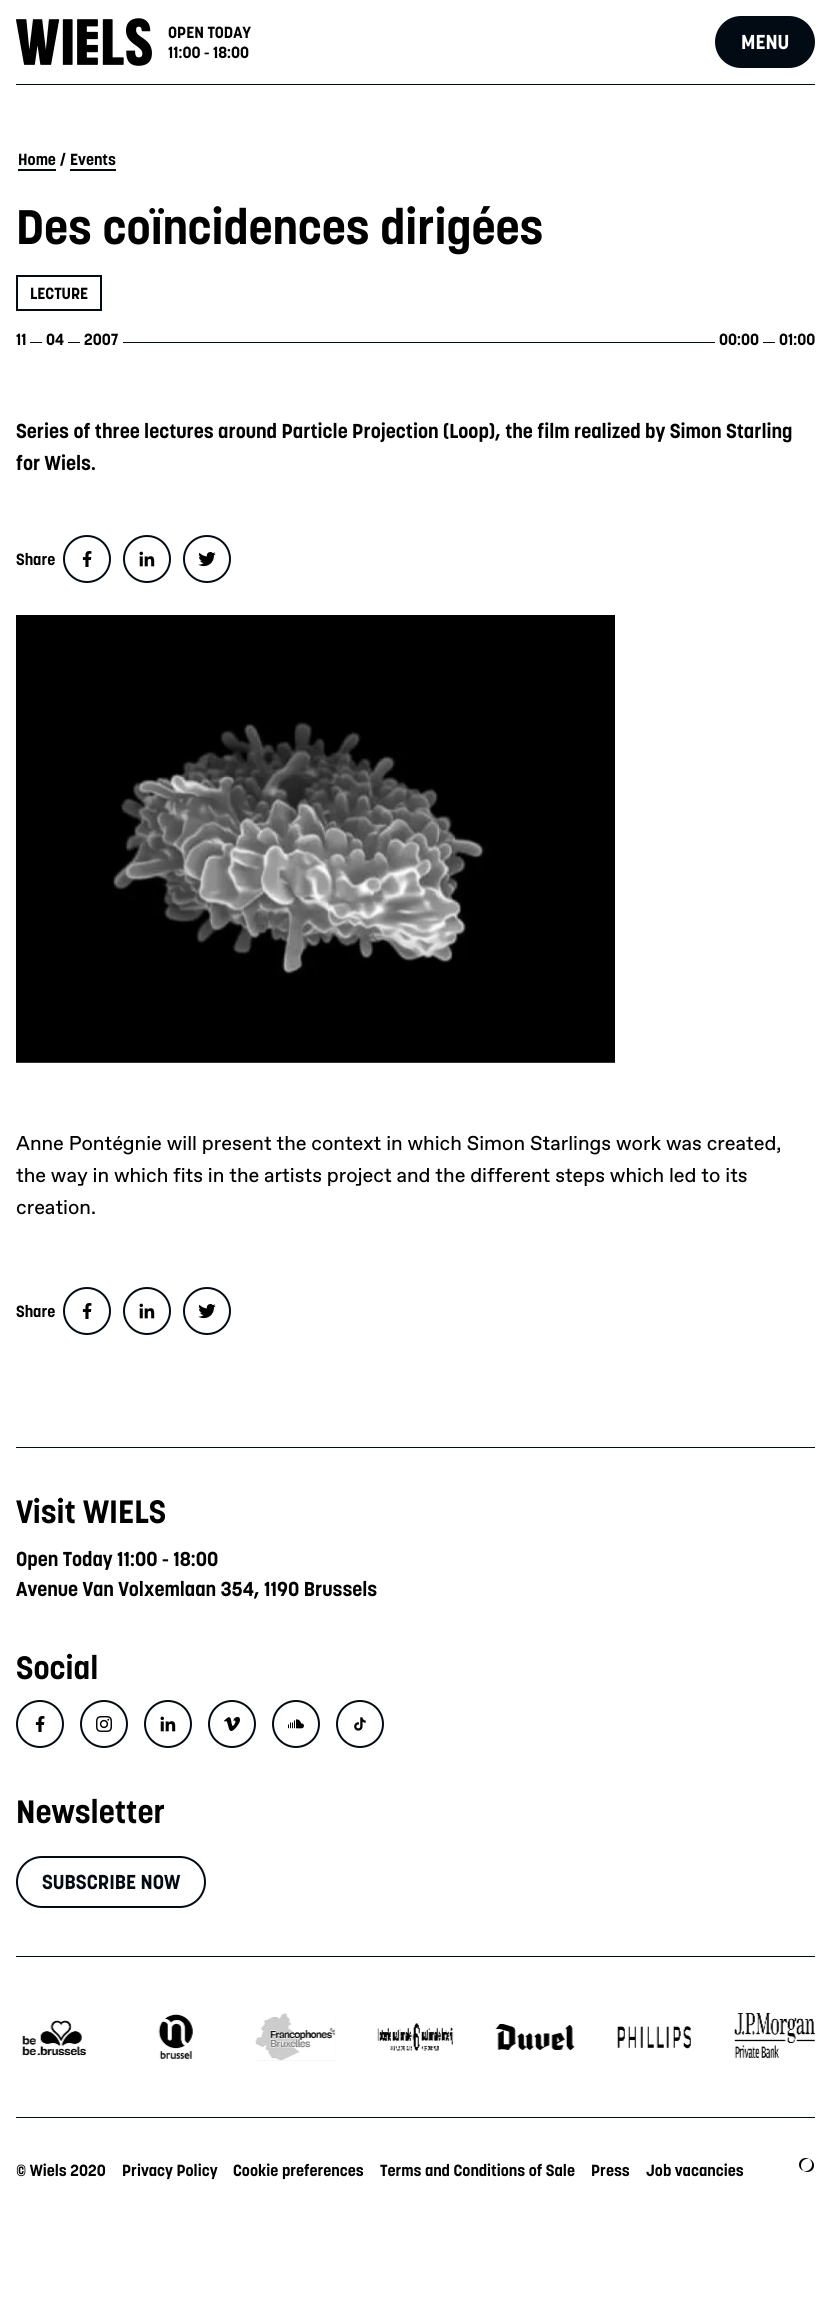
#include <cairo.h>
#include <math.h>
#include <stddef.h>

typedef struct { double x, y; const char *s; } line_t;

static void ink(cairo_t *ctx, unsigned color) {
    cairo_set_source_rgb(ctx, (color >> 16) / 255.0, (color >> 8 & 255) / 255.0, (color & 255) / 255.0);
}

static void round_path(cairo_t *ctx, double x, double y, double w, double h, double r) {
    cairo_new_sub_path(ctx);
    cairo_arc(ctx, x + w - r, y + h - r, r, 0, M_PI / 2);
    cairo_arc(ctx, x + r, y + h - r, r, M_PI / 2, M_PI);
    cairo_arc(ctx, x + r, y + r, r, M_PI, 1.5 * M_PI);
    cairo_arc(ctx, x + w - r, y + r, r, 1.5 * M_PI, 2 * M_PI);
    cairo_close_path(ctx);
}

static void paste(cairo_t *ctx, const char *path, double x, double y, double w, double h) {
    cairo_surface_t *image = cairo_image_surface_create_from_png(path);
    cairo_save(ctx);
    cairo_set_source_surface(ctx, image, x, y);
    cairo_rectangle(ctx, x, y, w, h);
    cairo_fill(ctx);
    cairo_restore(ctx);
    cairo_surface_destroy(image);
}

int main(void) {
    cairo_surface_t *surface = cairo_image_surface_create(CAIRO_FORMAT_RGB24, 831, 2322);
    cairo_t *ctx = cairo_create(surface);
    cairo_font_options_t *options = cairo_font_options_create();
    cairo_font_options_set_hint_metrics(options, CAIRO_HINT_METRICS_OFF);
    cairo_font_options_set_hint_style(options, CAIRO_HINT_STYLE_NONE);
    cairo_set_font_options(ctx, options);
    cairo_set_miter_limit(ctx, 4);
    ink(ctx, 0xFFFFFF);
    cairo_paint(ctx);
    ink(ctx, 0x020B13);
    cairo_rectangle(ctx, 16, 84, 799, 1);
    cairo_fill(ctx);
    paste(ctx, "media/1.png", 16, 18, 136, 48);
    cairo_select_font_face(ctx, "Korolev", CAIRO_FONT_SLANT_NORMAL, CAIRO_FONT_WEIGHT_BOLD);
    cairo_set_font_size(ctx, 16);
    ink(ctx, 0x000000);
    cairo_move_to(ctx, 168, 38);
    cairo_show_text(ctx, "OPEN TODAY");
    cairo_move_to(ctx, 168, 58);
    cairo_show_text(ctx, "11:00 - 18:00");
    ink(ctx, 0x020B13);
    round_path(ctx, 716, 17, 98, 50, 25);
    cairo_fill_preserve(ctx);
    cairo_stroke(ctx);
    cairo_set_font_size(ctx, 20);
    ink(ctx, 0xFFFFFF);
    cairo_move_to(ctx, 741, 49);
    cairo_show_text(ctx, "MENU");
    ink(ctx, 0x020B13);
    cairo_rectangle(ctx, 18, 169, 38, 2);
    cairo_fill(ctx);
    cairo_set_font_size(ctx, 16);
    ink(ctx, 0x000000);
    cairo_move_to(ctx, 18, 165);
    cairo_show_text(ctx, "Home");
    cairo_move_to(ctx, 60, 165);
    cairo_show_text(ctx, "/");
    ink(ctx, 0x020B13);
    cairo_rectangle(ctx, 70, 169, 46, 2);
    cairo_fill(ctx);
    ink(ctx, 0x000000);
    cairo_move_to(ctx, 70, 165);
    cairo_show_text(ctx, "Events");
    cairo_set_font_size(ctx, 48);
    cairo_move_to(ctx, 16, 244);
    cairo_show_text(ctx, "Des coïncidences dirigées");
    cairo_rectangle(ctx, 17, 276, 84, 34);
    ink(ctx, 0x020B13);
    cairo_stroke(ctx);
    cairo_set_font_size(ctx, 16);
    ink(ctx, 0x000000);
    cairo_move_to(ctx, 30, 299);
    cairo_show_text(ctx, "LECTURE");
    cairo_move_to(ctx, 16, 345);
    cairo_show_text(ctx, "11");
    ink(ctx, 0x020B13);
    cairo_rectangle(ctx, 30, 342, 12, 1);
    cairo_fill(ctx);
    ink(ctx, 0x000000);
    cairo_move_to(ctx, 46, 345);
    cairo_show_text(ctx, "04");
    ink(ctx, 0x020B13);
    cairo_rectangle(ctx, 68, 342, 12, 1);
    cairo_fill(ctx);
    ink(ctx, 0x000000);
    cairo_move_to(ctx, 84, 345);
    cairo_show_text(ctx, "2007");
    ink(ctx, 0x020B13);
    cairo_rectangle(ctx, 123, 342, 592, 1);
    cairo_fill(ctx);
    ink(ctx, 0x000000);
    cairo_move_to(ctx, 719, 345);
    cairo_show_text(ctx, "00:00");
    ink(ctx, 0x020B13);
    cairo_rectangle(ctx, 763, 342, 12, 1);
    cairo_fill(ctx);
    ink(ctx, 0x000000);
    cairo_move_to(ctx, 779, 345);
    cairo_show_text(ctx, "01:00");
    cairo_set_font_size(ctx, 20);
    cairo_move_to(ctx, 16, 438);
    cairo_show_text(ctx, "Series of three lectures around Particle Projection (Loop), the film realized by Simon Starling");
    cairo_move_to(ctx, 16, 470);
    cairo_show_text(ctx, "for Wiels.");
    cairo_set_font_size(ctx, 16);
    cairo_move_to(ctx, 16, 565);
    cairo_show_text(ctx, "Share");
    cairo_new_path(ctx);
    cairo_arc(ctx, 87, 559, 23, 0, 2 * M_PI);
    ink(ctx, 0x020B13);
    cairo_stroke(ctx);
    paste(ctx, "media/2.png", 82, 551, 10, 16);
    cairo_arc(ctx, 147, 559, 23, 0, 2 * M_PI);
    cairo_stroke(ctx);
    paste(ctx, "media/3.png", 139, 551, 16, 16);
    cairo_arc(ctx, 207, 559, 23, 0, 2 * M_PI);
    cairo_stroke(ctx);
    paste(ctx, "media/4.png", 198, 552, 18, 15);
    paste(ctx, "media/5.png", 16, 615, 599, 448);
    cairo_rectangle(ctx, 16, 1447, 799, 1);
    cairo_fill(ctx);
    cairo_select_font_face(ctx, "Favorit", CAIRO_FONT_SLANT_NORMAL, CAIRO_FONT_WEIGHT_NORMAL);
    cairo_set_font_size(ctx, 20);
    ink(ctx, 0x000000);
    {
        static const line_t items[] = {
            {16, 1150, "Anne Pontégnie will present the context in which Simon Starlings work was created,"},
            {16, 1182, "the way in which fits in the artists project and the different steps which led to its"},
            {16, 1214, "creation."},
        };
        for (size_t i = 0; i < sizeof items / sizeof *items; i++) {
            cairo_move_to(ctx, items[i].x, items[i].y);
            cairo_show_text(ctx, items[i].s);
        }
    }
    cairo_select_font_face(ctx, "Korolev", CAIRO_FONT_SLANT_NORMAL, CAIRO_FONT_WEIGHT_BOLD);
    cairo_set_font_size(ctx, 16);
    cairo_move_to(ctx, 16, 1317);
    cairo_show_text(ctx, "Share");
    cairo_new_path(ctx);
    cairo_arc(ctx, 87, 1311, 23, 0, 2 * M_PI);
    ink(ctx, 0x020B13);
    cairo_stroke(ctx);
    paste(ctx, "media/2.png", 82, 1303, 10, 16);
    cairo_arc(ctx, 147, 1311, 23, 0, 2 * M_PI);
    cairo_stroke(ctx);
    paste(ctx, "media/3.png", 139, 1303, 16, 16);
    cairo_arc(ctx, 207, 1311, 23, 0, 2 * M_PI);
    cairo_stroke(ctx);
    paste(ctx, "media/4.png", 198, 1304, 18, 15);
    cairo_rectangle(ctx, 16, 1956, 799, 1);
    cairo_fill(ctx);
    cairo_set_font_size(ctx, 32);
    ink(ctx, 0x000000);
    cairo_move_to(ctx, 16, 1523);
    cairo_show_text(ctx, "Visit WIELS");
    cairo_set_font_size(ctx, 20);
    cairo_move_to(ctx, 16, 1566);
    cairo_show_text(ctx, "Open Today 11:00 - 18:00");
    cairo_move_to(ctx, 16, 1596);
    cairo_show_text(ctx, "Avenue Van Volxemlaan 354, 1190 Brussels");
    cairo_set_font_size(ctx, 32);
    cairo_move_to(ctx, 16, 1679);
    cairo_show_text(ctx, "Social");
    cairo_new_path(ctx);
    cairo_arc(ctx, 40, 1724, 23, 0, 2 * M_PI);
    ink(ctx, 0x020B13);
    cairo_stroke(ctx);
    paste(ctx, "media/2.png", 35, 1716, 10, 16);
    cairo_arc(ctx, 104, 1724, 23, 0, 2 * M_PI);
    cairo_stroke(ctx);
    paste(ctx, "media/6.png", 96, 1716, 16, 16);
    cairo_arc(ctx, 168, 1724, 23, 0, 2 * M_PI);
    cairo_stroke(ctx);
    paste(ctx, "media/3.png", 160, 1716, 16, 16);
    cairo_arc(ctx, 232, 1724, 23, 0, 2 * M_PI);
    cairo_stroke(ctx);
    paste(ctx, "media/7.png", 224, 1717, 16, 14);
    cairo_arc(ctx, 296, 1724, 23, 0, 2 * M_PI);
    cairo_stroke(ctx);
    paste(ctx, "media/8.png", 288, 1719, 16, 10);
    cairo_arc(ctx, 360, 1724, 23, 0, 2 * M_PI);
    cairo_stroke(ctx);
    paste(ctx, "media/9.png", 354, 1717, 12, 14);
    ink(ctx, 0x000000);
    cairo_move_to(ctx, 16, 1823);
    cairo_show_text(ctx, "Newsletter");
    round_path(ctx, 17, 1857, 188, 50, 25);
    ink(ctx, 0x020B13);
    cairo_stroke(ctx);
    cairo_set_font_size(ctx, 20);
    cairo_move_to(ctx, 42, 1889);
    cairo_show_text(ctx, "SUBSCRIBE NOW");
    cairo_rectangle(ctx, 16, 2117, 799, 1);
    cairo_fill(ctx);
    paste(ctx, "media/10.png", 22, 2019, 65, 38);
    paste(ctx, "media/11.png", 158, 2013, 36, 46);
    paste(ctx, "media/12.png", 255, 2013, 81, 48);
    paste(ctx, "media/13.png", 377, 2023, 77, 28);
    paste(ctx, "media/14.png", 495, 2023, 80, 27);
    paste(ctx, "media/15.png", 617, 2026, 74, 23);
    paste(ctx, "media/16.png", 734, 2013, 81, 46);
    cairo_set_font_size(ctx, 16);
    ink(ctx, 0x000000);
    {
        static const line_t items[] = {
            {16, 2176, "© Wiels 2020"},
            {122, 2176, "Privacy Policy"},
            {233, 2176, "Cookie preferences"},
            {380, 2176, "Terms and Conditions of Sale"},
            {591, 2176, "Press"},
            {646, 2176, "Job vacancies"},
        };
        for (size_t i = 0; i < sizeof items / sizeof *items; i++) {
            cairo_move_to(ctx, items[i].x, items[i].y);
            cairo_show_text(ctx, items[i].s);
        }
    }
    paste(ctx, "media/17.png", 799, 2158, 15, 14);
    cairo_surface_write_to_png(surface, "image.png");
    cairo_font_options_destroy(options);
    cairo_destroy(ctx);
    cairo_surface_destroy(surface);
    return 0;
}
